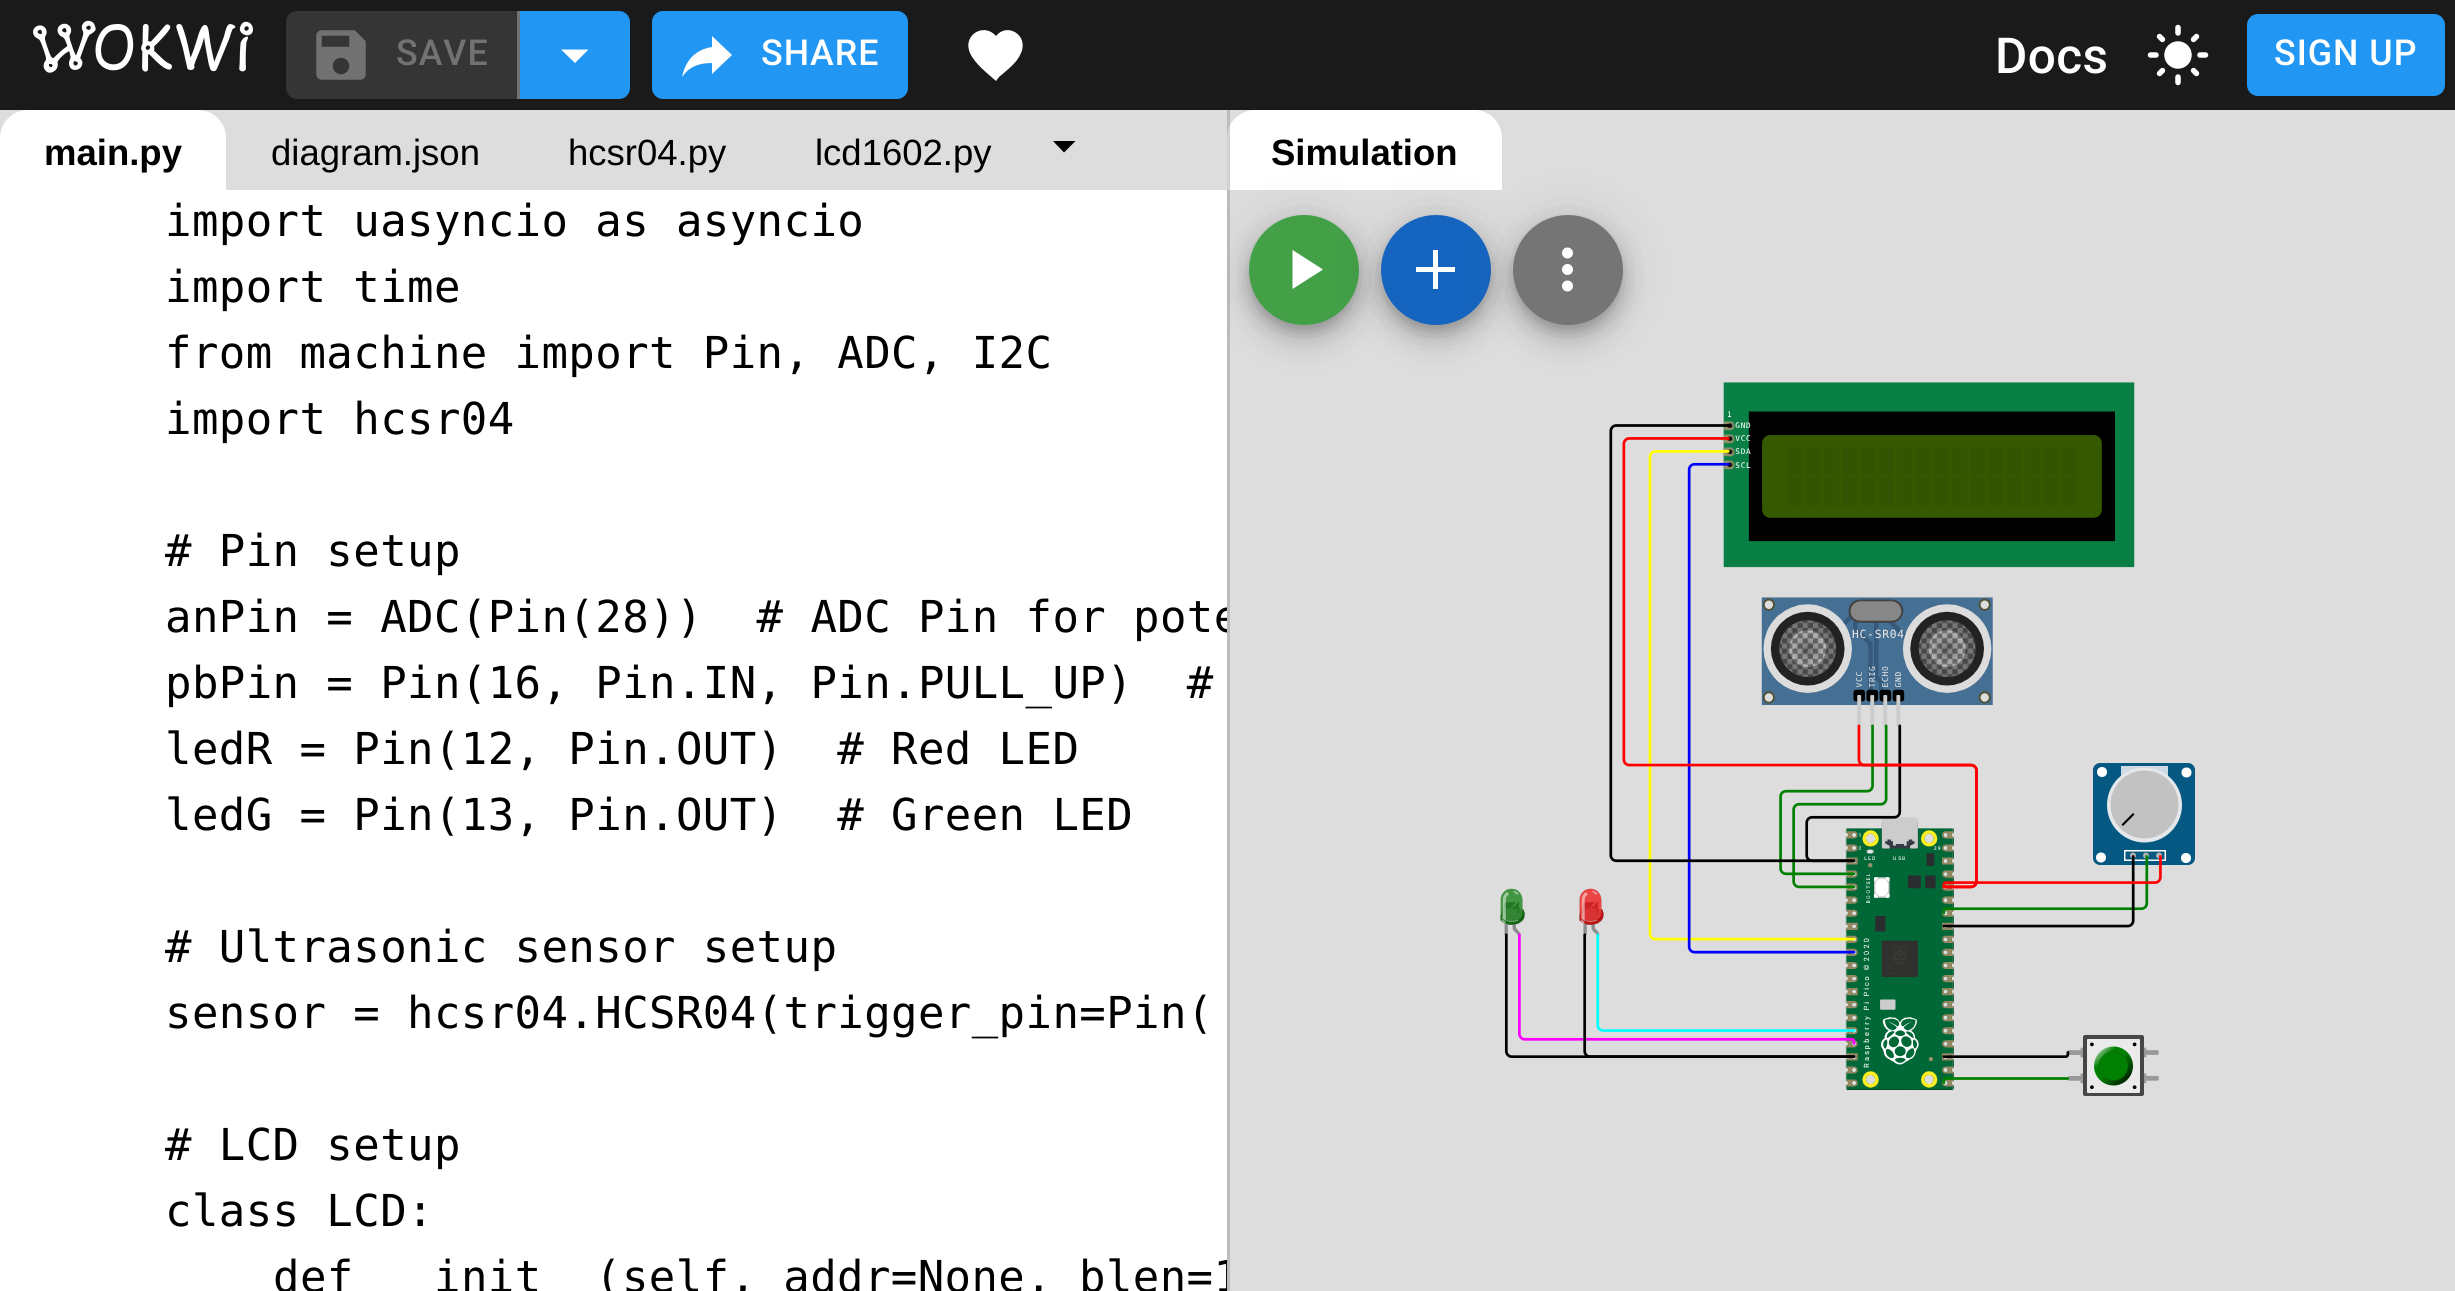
#include <cairo.h>
#include <math.h>
#include <stddef.h>

typedef struct { double x, y; const char *s; } line_t;

static void ink(cairo_t *ctx, unsigned color) {
    cairo_set_source_rgb(ctx, (color >> 16) / 255.0, (color >> 8 & 255) / 255.0, (color & 255) / 255.0);
}

static void write_spaced(cairo_t *ctx, double x, double y, const char *s, double letter, double word) {
    cairo_move_to(ctx, x, y);
    while (*s) {
        char ch[5] = {0};
        int n = 0;
        do ch[n++] = *s++; while ((*s & 0xC0) == 0x80);
        cairo_show_text(ctx, ch);
        cairo_rel_move_to(ctx, letter + word * (*ch == ' '), 0);
    }
}

static void round_path(cairo_t *ctx, double x, double y, double w, double h, double r) {
    cairo_new_sub_path(ctx);
    cairo_arc(ctx, x + w - r, y + h - r, r, 0, M_PI / 2);
    cairo_arc(ctx, x + r, y + h - r, r, M_PI / 2, M_PI);
    cairo_arc(ctx, x + r, y + r, r, M_PI, 1.5 * M_PI);
    cairo_arc(ctx, x + w - r, y + r, r, 1.5 * M_PI, 2 * M_PI);
    cairo_close_path(ctx);
}

static void blur_box(cairo_t *ctx, double x, double y, double w, double h, double r, double blur, double alpha) {
    cairo_push_group_with_content(ctx, CAIRO_CONTENT_ALPHA);
    cairo_set_operator(ctx, CAIRO_OPERATOR_SOURCE);
    for (int i = 15; i >= -15 && fmin(w, h) + blur * i / 3 > 0; i -= 2) {
        double e = blur * i / 6;
        cairo_set_source_rgba(ctx, 0, 0, 0, alpha * erfc((i - 1) / 8.5) / 2);
        round_path(ctx, x - e, y - e, w + 2 * e, h + 2 * e, fmax(0, fmin(r + e + blur * .6, fmin(w, h) / 2 + e)));
        cairo_fill(ctx);
    }
    cairo_pattern_t *soft = cairo_pop_group(ctx);
    cairo_mask(ctx, soft);
    cairo_pattern_destroy(soft);
}

static void paste(cairo_t *ctx, const char *path, double x, double y, double w, double h) {
    cairo_surface_t *image = cairo_image_surface_create_from_png(path);
    cairo_save(ctx);
    cairo_set_source_surface(ctx, image, x, y);
    cairo_rectangle(ctx, x, y, w, h);
    cairo_fill(ctx);
    cairo_restore(ctx);
    cairo_surface_destroy(image);
}

int main(void) {
    cairo_surface_t *surface = cairo_image_surface_create(CAIRO_FORMAT_RGB24, 2455, 1291);
    cairo_t *ctx = cairo_create(surface);
    cairo_font_options_t *options = cairo_font_options_create();
    cairo_font_options_set_hint_metrics(options, CAIRO_HINT_METRICS_OFF);
    cairo_font_options_set_hint_style(options, CAIRO_HINT_STYLE_NONE);
    cairo_set_font_options(ctx, options);
    cairo_set_miter_limit(ctx, 4);
    ink(ctx, 0x1A1A1A);
    cairo_paint(ctx);
    paste(ctx, "media/1.png", 33, 20, 220, 53);
    cairo_set_source_rgba(ctx, 1, 1, 1, 0.12);
    cairo_new_path(ctx);
    cairo_move_to(ctx, 297, 11);
    cairo_line_to(ctx, 520, 11);
    cairo_line_to(ctx, 520, 99);
    cairo_line_to(ctx, 297, 99);
    cairo_curve_to(ctx, 291, 99, 286, 94, 286, 88);
    cairo_line_to(ctx, 286, 22);
    cairo_curve_to(ctx, 286, 16, 291, 11, 297, 11);
    cairo_close_path(ctx);
    cairo_fill(ctx);
    ink(ctx, 0x727272);
    cairo_rectangle(ctx, 517, 11, 3, 88);
    cairo_fill(ctx);
    paste(ctx, "media/2.png", 316, 30, 50, 50);
    cairo_select_font_face(ctx, "Roboto Medium", CAIRO_FONT_SLANT_NORMAL, CAIRO_FONT_WEIGHT_NORMAL);
    cairo_set_font_size(ctx, 35.75);
    write_spaced(ctx, 396, 65, "SAVE", 1, 0);
    ink(ctx, 0x2196F3);
    cairo_new_path(ctx);
    cairo_move_to(ctx, 520, 11);
    cairo_line_to(ctx, 619, 11);
    cairo_curve_to(ctx, 625, 11, 630, 16, 630, 22);
    cairo_line_to(ctx, 630, 88);
    cairo_curve_to(ctx, 630, 94, 625, 99, 619, 99);
    cairo_line_to(ctx, 520, 99);
    cairo_close_path(ctx);
    cairo_fill(ctx);
    ink(ctx, 0xFFFFFF);
    cairo_new_path(ctx);
    cairo_move_to(ctx, 561, 49.5);
    cairo_line_to(ctx, 575, 63);
    cairo_line_to(ctx, 588.5, 49.5);
    cairo_close_path(ctx);
    cairo_fill(ctx);
    ink(ctx, 0x2196F3);
    round_path(ctx, 652, 11, 256, 88, 11);
    cairo_fill(ctx);
    ink(ctx, 0xFFFFFF);
    cairo_new_path(ctx);
    cairo_move_to(ctx, 732, 55);
    cairo_line_to(ctx, 712, 36);
    cairo_line_to(ctx, 712, 47);
    cairo_curve_to(ctx, 693, 50, 685, 63, 682, 77);
    cairo_curve_to(ctx, 689, 67, 698, 63, 712, 63);
    cairo_line_to(ctx, 712, 74);
    cairo_close_path(ctx);
    cairo_fill(ctx);
    write_spaced(ctx, 761, 65, "SHARE", 1, 0);
    cairo_new_path(ctx);
    cairo_move_to(ctx, 996, 81);
    cairo_curve_to(ctx, 987, 73, 975, 64, 970, 53);
    cairo_curve_to(ctx, 962, 35, 984, 22, 996, 36);
    cairo_curve_to(ctx, 1007, 22, 1029, 35, 1021, 53);
    cairo_curve_to(ctx, 1017, 63, 1007, 70, 999, 77);
    cairo_close_path(ctx);
    cairo_fill(ctx);
    cairo_set_font_size(ctx, 49.5);
    write_spaced(ctx, 1995, 73, "Docs", 0.4, 0);
    paste(ctx, "media/3.png", 2147, 24, 62, 62);
    ink(ctx, 0x2196F3);
    round_path(ctx, 2247, 14, 198, 82, 11);
    cairo_fill(ctx);
    cairo_set_font_size(ctx, 35.75);
    ink(ctx, 0xFFFFFF);
    write_spaced(ctx, 2274, 65, "SIGN UP", 1, 0);
    ink(ctx, 0xDDDDDD);
    cairo_rectangle(ctx, 0, 110, 2455, 80);
    cairo_fill(ctx);
    ink(ctx, 0xFFFFFF);
    cairo_new_path(ctx);
    cairo_move_to(ctx, 28, 110);
    cairo_line_to(ctx, 198, 110);
    cairo_curve_to(ctx, 213.5, 110, 226, 122.5, 226, 138);
    cairo_line_to(ctx, 226, 190);
    cairo_line_to(ctx, 0, 190);
    cairo_line_to(ctx, 0, 138);
    cairo_curve_to(ctx, 0, 122.5, 12.5, 110, 28, 110);
    cairo_close_path(ctx);
    cairo_fill(ctx);
    cairo_select_font_face(ctx, "Liberation Sans", CAIRO_FONT_SLANT_NORMAL, CAIRO_FONT_WEIGHT_BOLD);
    cairo_set_font_size(ctx, 36.5);
    ink(ctx, 0x000000);
    cairo_move_to(ctx, 44, 165);
    cairo_show_text(ctx, "main.py");
    cairo_select_font_face(ctx, "Liberation Sans", CAIRO_FONT_SLANT_NORMAL, CAIRO_FONT_WEIGHT_NORMAL);
    {
        static const line_t items[] = {
            {271, 165, "diagram.json"},
            {568, 165, "hcsr04.py"},
            {815, 165, "lcd1602.py"},
        };
        for (size_t i = 0; i < sizeof items / sizeof *items; i++) {
            cairo_move_to(ctx, items[i].x, items[i].y);
            cairo_show_text(ctx, items[i].s);
        }
    }
    cairo_new_path(ctx);
    cairo_move_to(ctx, 1053, 141);
    cairo_line_to(ctx, 1064, 152.5);
    cairo_line_to(ctx, 1075.5, 141);
    cairo_close_path(ctx);
    cairo_fill(ctx);
    ink(ctx, 0xFFFFFF);
    cairo_rectangle(ctx, 0, 190, 1227, 1101);
    cairo_fill(ctx);
    cairo_select_font_face(ctx, "DejaVu Sans Mono", CAIRO_FONT_SLANT_NORMAL, CAIRO_FONT_WEIGHT_NORMAL);
    cairo_set_font_size(ctx, 44);
    ink(ctx, 0x000000);
    {
        static const line_t items[] = {
            {165, 236, "import uasyncio as asyncio"},
            {165, 302, "import time"},
            {165, 368, "from machine import Pin, ADC, I2C"},
            {165, 434, "import hcsr04"},
            {165, 566, "# Pin setup"},
            {165, 632, "anPin = ADC(Pin(28))  # ADC Pin for pote"},
            {165, 698, "pbPin = Pin(16, Pin.IN, Pin.PULL_UP)  #"},
            {165, 764, "ledR = Pin(12, Pin.OUT)  # Red LED"},
            {165, 830, "ledG = Pin(13, Pin.OUT)  # Green LED"},
            {165, 962, "# Ultrasonic sensor setup"},
            {165, 1028, "sensor = hcsr04.HCSR04(trigger_pin=Pin("},
            {165, 1160, "# LCD setup"},
            {165, 1226, "class LCD:"},
            {273, 1292, "def"},
            {434, 1292, "init"},
            {595, 1292, "(self, addr=None, blen=1"},
        };
        for (size_t i = 0; i < sizeof items / sizeof *items; i++) {
            write_spaced(ctx, items[i].x, items[i].y, items[i].s, 0.4, 0);
        }
    }
    ink(ctx, 0xFFFFFF);
    cairo_new_path(ctx);
    cairo_move_to(ctx, 1255, 110);
    cairo_line_to(ctx, 1474, 110);
    cairo_curve_to(ctx, 1489.5, 110, 1502, 122.5, 1502, 138);
    cairo_line_to(ctx, 1502, 190);
    cairo_line_to(ctx, 1227, 190);
    cairo_line_to(ctx, 1227, 138);
    cairo_curve_to(ctx, 1227, 122.5, 1239.5, 110, 1255, 110);
    cairo_close_path(ctx);
    cairo_fill(ctx);
    ink(ctx, 0xDDDDDD);
    cairo_rectangle(ctx, 1227, 190, 1228, 1101);
    cairo_fill(ctx);
    cairo_save(ctx);
    cairo_rectangle(ctx, 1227, 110, 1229, 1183);
    cairo_clip(ctx);
    ink(ctx, 0x000000);
    blur_box(ctx, 1249, 217, 110, 110, 55, 25, 0.12);
    cairo_restore(ctx);
    ink(ctx, 0x000000);
    blur_box(ctx, 1249, 231, 110, 110, 55, 14, 0.14);
    blur_box(ctx, 1251, 226, 105, 104, 52, 7, 0.2);
    cairo_set_source_rgba(ctx, 0.502, 0.502, 0.502, 0.35);
    cairo_rectangle(ctx, 1227, 110, 3, 1181);
    cairo_fill(ctx);
    cairo_select_font_face(ctx, "Liberation Sans", CAIRO_FONT_SLANT_NORMAL, CAIRO_FONT_WEIGHT_BOLD);
    cairo_set_font_size(ctx, 36.5);
    ink(ctx, 0x000000);
    cairo_move_to(ctx, 1271, 165);
    cairo_show_text(ctx, "Simulation");
    ink(ctx, 0x43A047);
    cairo_new_path(ctx);
    cairo_arc(ctx, 1304, 270, 55, 0, 2 * M_PI);
    cairo_fill(ctx);
    ink(ctx, 0xFFFFFF);
    cairo_new_path(ctx);
    cairo_move_to(ctx, 1292.5, 250);
    cairo_line_to(ctx, 1292.5, 289);
    cairo_line_to(ctx, 1323, 269.5);
    cairo_close_path(ctx);
    cairo_fill(ctx);
    ink(ctx, 0x000000);
    blur_box(ctx, 1381, 217, 110, 110, 55, 25, 0.12);
    blur_box(ctx, 1381, 231, 110, 110, 55, 14, 0.14);
    blur_box(ctx, 1383, 226, 105, 104, 52, 7, 0.2);
    ink(ctx, 0x1565C0);
    cairo_arc(ctx, 1436, 270, 55, 0, 2 * M_PI);
    cairo_fill(ctx);
    ink(ctx, 0xFFFFFF);
    cairo_new_path(ctx);
    cairo_move_to(ctx, 1455, 272);
    cairo_line_to(ctx, 1438, 272);
    cairo_line_to(ctx, 1438, 289);
    cairo_line_to(ctx, 1433, 289);
    cairo_line_to(ctx, 1433, 272);
    cairo_line_to(ctx, 1416, 272);
    cairo_line_to(ctx, 1416, 267);
    cairo_line_to(ctx, 1433, 267);
    cairo_line_to(ctx, 1433, 250);
    cairo_line_to(ctx, 1438, 250);
    cairo_line_to(ctx, 1438, 267);
    cairo_line_to(ctx, 1455, 267);
    cairo_close_path(ctx);
    cairo_fill(ctx);
    ink(ctx, 0x000000);
    blur_box(ctx, 1513, 217, 110, 110, 55, 25, 0.12);
    blur_box(ctx, 1513, 231, 110, 110, 55, 14, 0.14);
    blur_box(ctx, 1515, 226, 105, 104, 52, 7, 0.2);
    ink(ctx, 0x757575);
    cairo_arc(ctx, 1568, 270, 55, 0, 2 * M_PI);
    cairo_fill(ctx);
    paste(ctx, "media/4.png", 1562, 247, 11, 45);
    paste(ctx, "media/5.png", 1723, 382, 412, 186);
    paste(ctx, "media/7.png", 1761, 597, 232, 130);
    paste(ctx, "media/8.png", 1500, 888, 25, 48);
    paste(ctx, "media/9.png", 1579, 888, 25, 48);
    paste(ctx, "media/10.png", 1845, 817, 109, 273);
    ink(ctx, 0x045881);
    round_path(ctx, 2093.75, 763.75, 100.5, 100.5, 6.25);
    cairo_fill_preserve(ctx);
    cairo_set_line_width(ctx, 1.5);
    cairo_stroke(ctx);
    ink(ctx, 0xCCDAE3);
    cairo_rectangle(ctx, 2121, 766, 47, 10);
    cairo_fill(ctx);
    ink(ctx, 0xE4E8EB);
    cairo_arc(ctx, 2144.5, 805, 37.5, 0, 2 * M_PI);
    cairo_fill(ctx);
    cairo_rectangle(ctx, 2124.75, 850.75, 40.5, 9.5);
    ink(ctx, 0xFFFFFF);
    cairo_stroke(ctx);
    cairo_arc(ctx, 2102, 772, 5, 0, 2 * M_PI);
    cairo_fill(ctx);
    cairo_arc(ctx, 2101, 857.5, 5, 0, 2 * M_PI);
    cairo_fill(ctx);
    ink(ctx, 0xB3B1B0);
    cairo_arc(ctx, 2133, 855.5, 3, 0, 2 * M_PI);
    cairo_fill(ctx);
    cairo_arc(ctx, 2146, 855.5, 3, 0, 2 * M_PI);
    cairo_fill(ctx);
    cairo_arc(ctx, 2159, 855.5, 3, 0, 2 * M_PI);
    cairo_fill(ctx);
    ink(ctx, 0xC3C2C3);
    cairo_arc(ctx, 2144.5, 804.5, 34, 0, 2 * M_PI);
    cairo_fill(ctx);
    ink(ctx, 0x000000);
    cairo_new_path(ctx);
    cairo_move_to(ctx, 2123, 826);
    cairo_line_to(ctx, 2121.5, 824.5);
    cairo_line_to(ctx, 2133, 813);
    cairo_line_to(ctx, 2134.5, 814.5);
    cairo_close_path(ctx);
    cairo_fill(ctx);
    paste(ctx, "media/11.png", 2068, 1035, 91, 61);
    paste(ctx, "media/6.png", 1504, 424, 658, 661);
    ink(ctx, 0xFFFFFF);
    cairo_arc(ctx, 2186, 858, 5, 0, 2 * M_PI);
    cairo_fill(ctx);
    cairo_arc(ctx, 2186.5, 772.5, 5, 0, 2 * M_PI);
    cairo_fill(ctx);
    cairo_surface_write_to_png(surface, "image.png");
    cairo_font_options_destroy(options);
    cairo_destroy(ctx);
    cairo_surface_destroy(surface);
    return 0;
}
